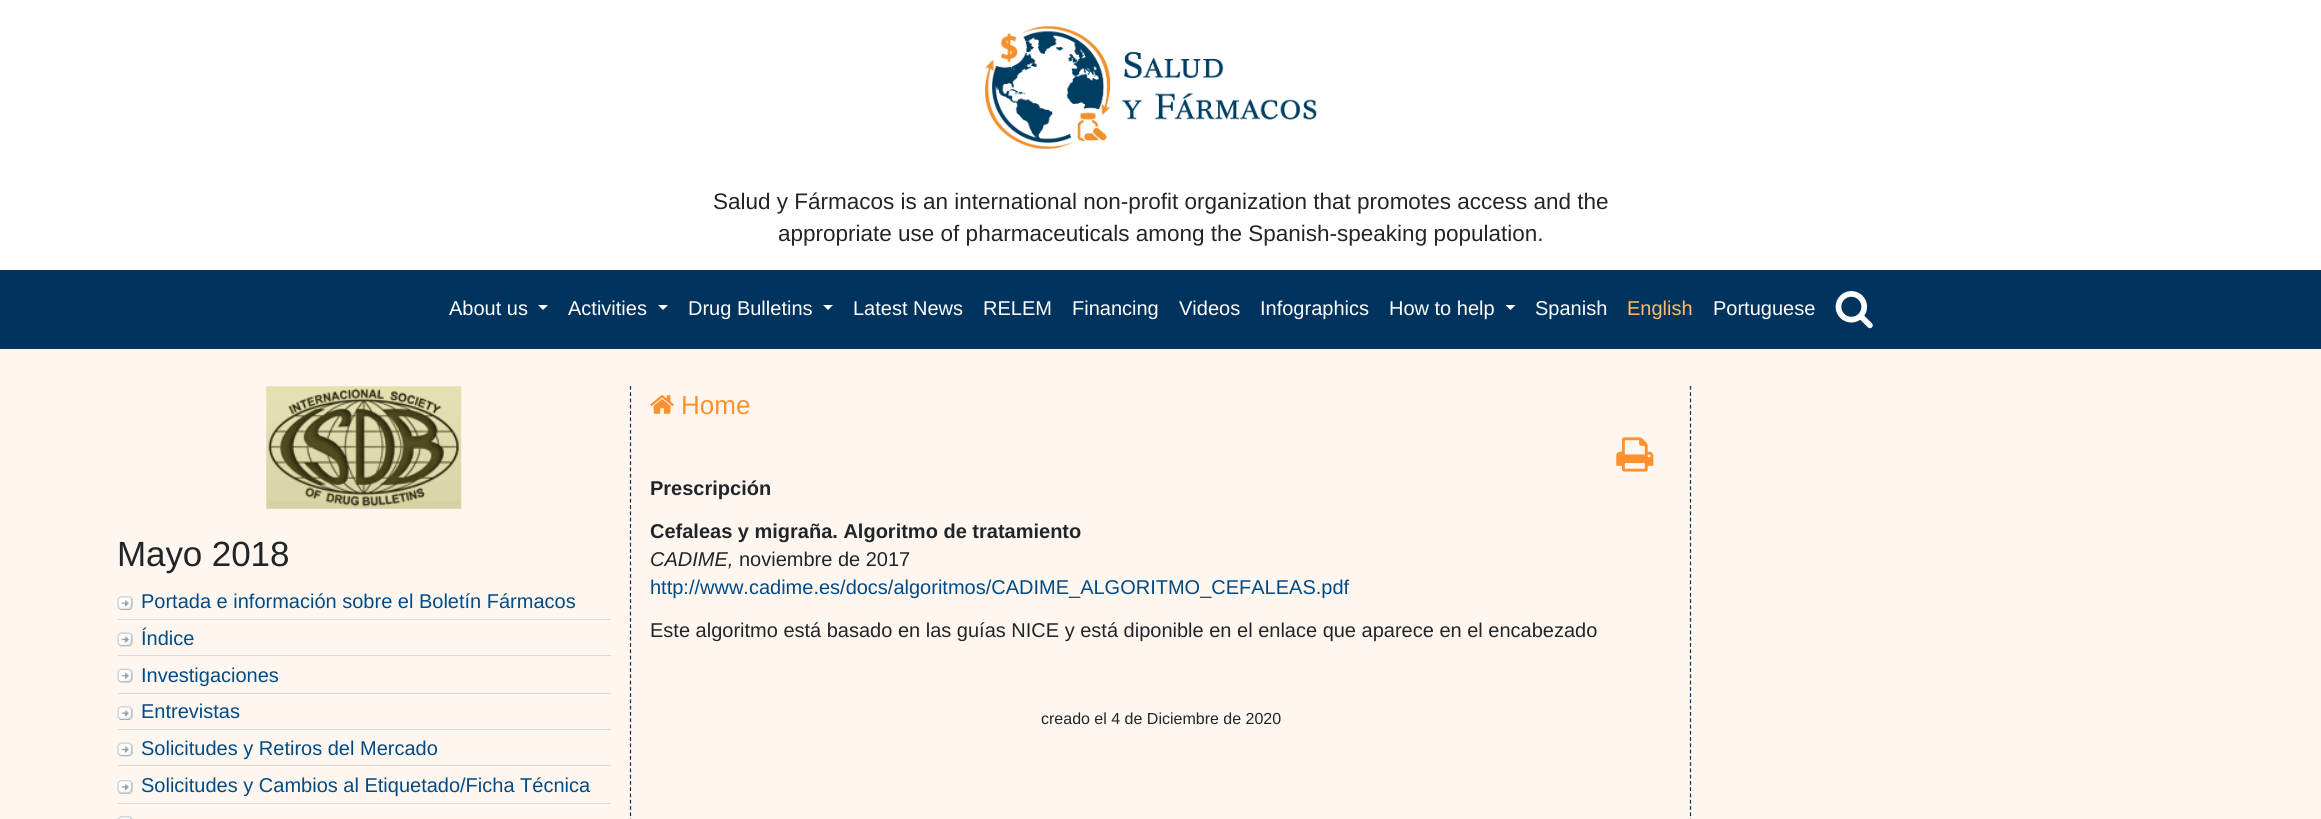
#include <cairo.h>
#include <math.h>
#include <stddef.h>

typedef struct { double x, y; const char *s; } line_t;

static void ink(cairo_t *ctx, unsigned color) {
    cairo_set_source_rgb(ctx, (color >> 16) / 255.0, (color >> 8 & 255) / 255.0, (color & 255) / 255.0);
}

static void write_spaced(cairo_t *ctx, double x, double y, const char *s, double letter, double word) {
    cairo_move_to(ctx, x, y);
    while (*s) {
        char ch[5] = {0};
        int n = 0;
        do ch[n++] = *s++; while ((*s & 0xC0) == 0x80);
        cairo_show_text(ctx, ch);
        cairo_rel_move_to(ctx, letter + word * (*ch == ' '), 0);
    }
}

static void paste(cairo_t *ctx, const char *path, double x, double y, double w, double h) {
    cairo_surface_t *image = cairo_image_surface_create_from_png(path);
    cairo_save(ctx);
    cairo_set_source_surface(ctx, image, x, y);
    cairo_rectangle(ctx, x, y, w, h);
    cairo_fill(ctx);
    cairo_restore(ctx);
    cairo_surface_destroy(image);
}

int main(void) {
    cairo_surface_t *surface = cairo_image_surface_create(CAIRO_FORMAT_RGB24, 2321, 819);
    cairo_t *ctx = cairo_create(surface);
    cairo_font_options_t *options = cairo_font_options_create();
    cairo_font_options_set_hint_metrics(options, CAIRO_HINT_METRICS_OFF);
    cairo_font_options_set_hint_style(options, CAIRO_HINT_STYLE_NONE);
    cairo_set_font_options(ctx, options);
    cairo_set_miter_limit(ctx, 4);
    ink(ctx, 0xFFFFFF);
    cairo_paint(ctx);
    paste(ctx, "media/1.png", 985, 26, 332, 123);
    cairo_select_font_face(ctx, "Liberation Sans", CAIRO_FONT_SLANT_NORMAL, CAIRO_FONT_WEIGHT_NORMAL);
    cairo_set_font_size(ctx, 22.5);
    ink(ctx, 0x212529);
    cairo_move_to(ctx, 713, 209);
    cairo_show_text(ctx, "Salud y Fármacos is an international non-profit organization that promotes access and the");
    cairo_move_to(ctx, 778, 241);
    cairo_show_text(ctx, "appropriate use of pharmaceuticals among the Spanish-speaking population.");
    ink(ctx, 0x00335E);
    cairo_rectangle(ctx, 0, 270, 2321, 79);
    cairo_fill(ctx);
    cairo_set_font_size(ctx, 20);
    ink(ctx, 0xFFFFFF);
    cairo_move_to(ctx, 449, 315);
    cairo_show_text(ctx, "About us");
    cairo_new_path(ctx);
    cairo_move_to(ctx, 538, 305);
    cairo_line_to(ctx, 548, 305);
    cairo_line_to(ctx, 543, 310);
    cairo_close_path(ctx);
    cairo_fill(ctx);
    cairo_move_to(ctx, 568, 315);
    cairo_show_text(ctx, "Activities");
    cairo_new_path(ctx);
    cairo_move_to(ctx, 658, 305);
    cairo_line_to(ctx, 668, 305);
    cairo_line_to(ctx, 663, 310);
    cairo_close_path(ctx);
    cairo_fill(ctx);
    cairo_move_to(ctx, 688, 315);
    cairo_show_text(ctx, "Drug Bulletins");
    cairo_new_path(ctx);
    cairo_move_to(ctx, 823, 305);
    cairo_line_to(ctx, 833, 305);
    cairo_line_to(ctx, 828, 310);
    cairo_close_path(ctx);
    cairo_fill(ctx);
    {
        static const line_t items[] = {
            {853, 315, "Latest News"},
            {983, 315, "RELEM"},
            {1072, 315, "Financing"},
            {1179, 315, "Videos"},
            {1260, 315, "Infographics"},
            {1389, 315, "How to help"},
        };
        for (size_t i = 0; i < sizeof items / sizeof *items; i++) {
            cairo_move_to(ctx, items[i].x, items[i].y);
            cairo_show_text(ctx, items[i].s);
        }
    }
    cairo_new_path(ctx);
    cairo_move_to(ctx, 1505.5, 305);
    cairo_line_to(ctx, 1515.5, 305);
    cairo_line_to(ctx, 1510.5, 310);
    cairo_close_path(ctx);
    cairo_fill(ctx);
    cairo_move_to(ctx, 1535, 315);
    cairo_show_text(ctx, "Spanish");
    ink(ctx, 0xFFBE62);
    cairo_move_to(ctx, 1627, 315);
    cairo_show_text(ctx, "English");
    ink(ctx, 0xFFFFFF);
    cairo_move_to(ctx, 1713, 315);
    cairo_show_text(ctx, "Portuguese");
    paste(ctx, "media/2.png", 1835, 291, 38, 38);
    ink(ctx, 0xFFF7EF);
    cairo_rectangle(ctx, 0, 349, 2321, 470);
    cairo_fill(ctx);
    paste(ctx, "media/3.png", 266, 386, 196, 123);
    cairo_set_font_size(ctx, 35);
    ink(ctx, 0x212529);
    write_spaced(ctx, 117, 566, "Mayo 2018", -0.1, 0);
    paste(ctx, "media/4.png", 117, 596, 16, 14);
    ink(ctx, 0xDADADA);
    cairo_rectangle(ctx, 118, 619, 493, 1);
    cairo_fill(ctx);
    cairo_set_font_size(ctx, 20);
    ink(ctx, 0x004A86);
    cairo_move_to(ctx, 141, 608);
    cairo_show_text(ctx, "Portada e información sobre el Boletín Fármacos");
    paste(ctx, "media/5.png", 117, 632, 16, 15);
    ink(ctx, 0xDADADA);
    cairo_rectangle(ctx, 118, 655, 493, 1);
    cairo_fill(ctx);
    ink(ctx, 0x004A86);
    cairo_move_to(ctx, 141, 645);
    cairo_show_text(ctx, "Índice");
    paste(ctx, "media/6.png", 117, 668, 16, 15);
    ink(ctx, 0xDADADA);
    cairo_rectangle(ctx, 118, 693, 493, 1);
    cairo_fill(ctx);
    ink(ctx, 0x004A86);
    cairo_move_to(ctx, 141, 682);
    cairo_show_text(ctx, "Investigaciones");
    paste(ctx, "media/4.png", 117, 706, 16, 14);
    ink(ctx, 0xDADADA);
    cairo_rectangle(ctx, 118, 729, 493, 1);
    cairo_fill(ctx);
    ink(ctx, 0x004A86);
    cairo_move_to(ctx, 141, 718);
    cairo_show_text(ctx, "Entrevistas");
    paste(ctx, "media/5.png", 117, 742, 16, 15);
    ink(ctx, 0xDADADA);
    cairo_rectangle(ctx, 118, 765, 493, 1);
    cairo_fill(ctx);
    ink(ctx, 0x004A86);
    cairo_move_to(ctx, 141, 755);
    cairo_show_text(ctx, "Solicitudes y Retiros del Mercado");
    paste(ctx, "media/7.png", 117, 780, 16, 14);
    ink(ctx, 0xDADADA);
    cairo_rectangle(ctx, 118, 803, 493, 1);
    cairo_fill(ctx);
    ink(ctx, 0x004A86);
    cairo_move_to(ctx, 141, 792);
    cairo_show_text(ctx, "Solicitudes y Cambios al Etiquetado/Ficha Técnica");
    paste(ctx, "media/8.png", 117, 816, 16, 3);
    cairo_new_path(ctx);
    cairo_move_to(ctx, 1690.5, 386);
    cairo_line_to(ctx, 1690.5, 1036);
    ink(ctx, 0x00335E);
    cairo_set_line_width(ctx, 1.2);
    cairo_set_dash(ctx, (double[]){3.75, 2.52}, 2, 0);
    cairo_stroke(ctx);
    cairo_new_path(ctx);
    cairo_move_to(ctx, 630.5, 386);
    cairo_line_to(ctx, 630.5, 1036);
    cairo_stroke(ctx);
    paste(ctx, "media/9.png", 650, 395, 24, 19);
    cairo_set_font_size(ctx, 26);
    ink(ctx, 0xFF902E);
    cairo_move_to(ctx, 681, 414);
    cairo_show_text(ctx, "Home");
    paste(ctx, "media/10.png", 1616, 437, 38, 35);
    cairo_select_font_face(ctx, "Liberation Sans", CAIRO_FONT_SLANT_NORMAL, CAIRO_FONT_WEIGHT_BOLD);
    cairo_set_font_size(ctx, 20);
    ink(ctx, 0x212529);
    cairo_move_to(ctx, 650, 495);
    cairo_show_text(ctx, "Prescripción");
    cairo_move_to(ctx, 650, 538);
    cairo_show_text(ctx, "Cefaleas y migraña. Algoritmo de tratamiento");
    cairo_select_font_face(ctx, "Liberation Sans", CAIRO_FONT_SLANT_ITALIC, CAIRO_FONT_WEIGHT_NORMAL);
    cairo_move_to(ctx, 650, 566);
    cairo_show_text(ctx, "CADIME,");
    cairo_select_font_face(ctx, "Liberation Sans", CAIRO_FONT_SLANT_NORMAL, CAIRO_FONT_WEIGHT_NORMAL);
    cairo_move_to(ctx, 739, 566);
    cairo_show_text(ctx, "noviembre de 2017");
    ink(ctx, 0x004A86);
    cairo_move_to(ctx, 650, 594);
    cairo_show_text(ctx, "http://www.cadime.es/docs/algoritmos/CADIME_ALGORITMO_CEFALEAS.pdf");
    ink(ctx, 0x212529);
    cairo_move_to(ctx, 650, 637);
    cairo_show_text(ctx, "Este algoritmo está basado en las guías NICE y está diponible en el enlace que aparece en el encabezado");
    cairo_set_font_size(ctx, 16);
    cairo_move_to(ctx, 1041, 724);
    cairo_show_text(ctx, "creado el 4 de Diciembre de 2020");
    cairo_surface_write_to_png(surface, "image.png");
    cairo_font_options_destroy(options);
    cairo_destroy(ctx);
    cairo_surface_destroy(surface);
    return 0;
}
